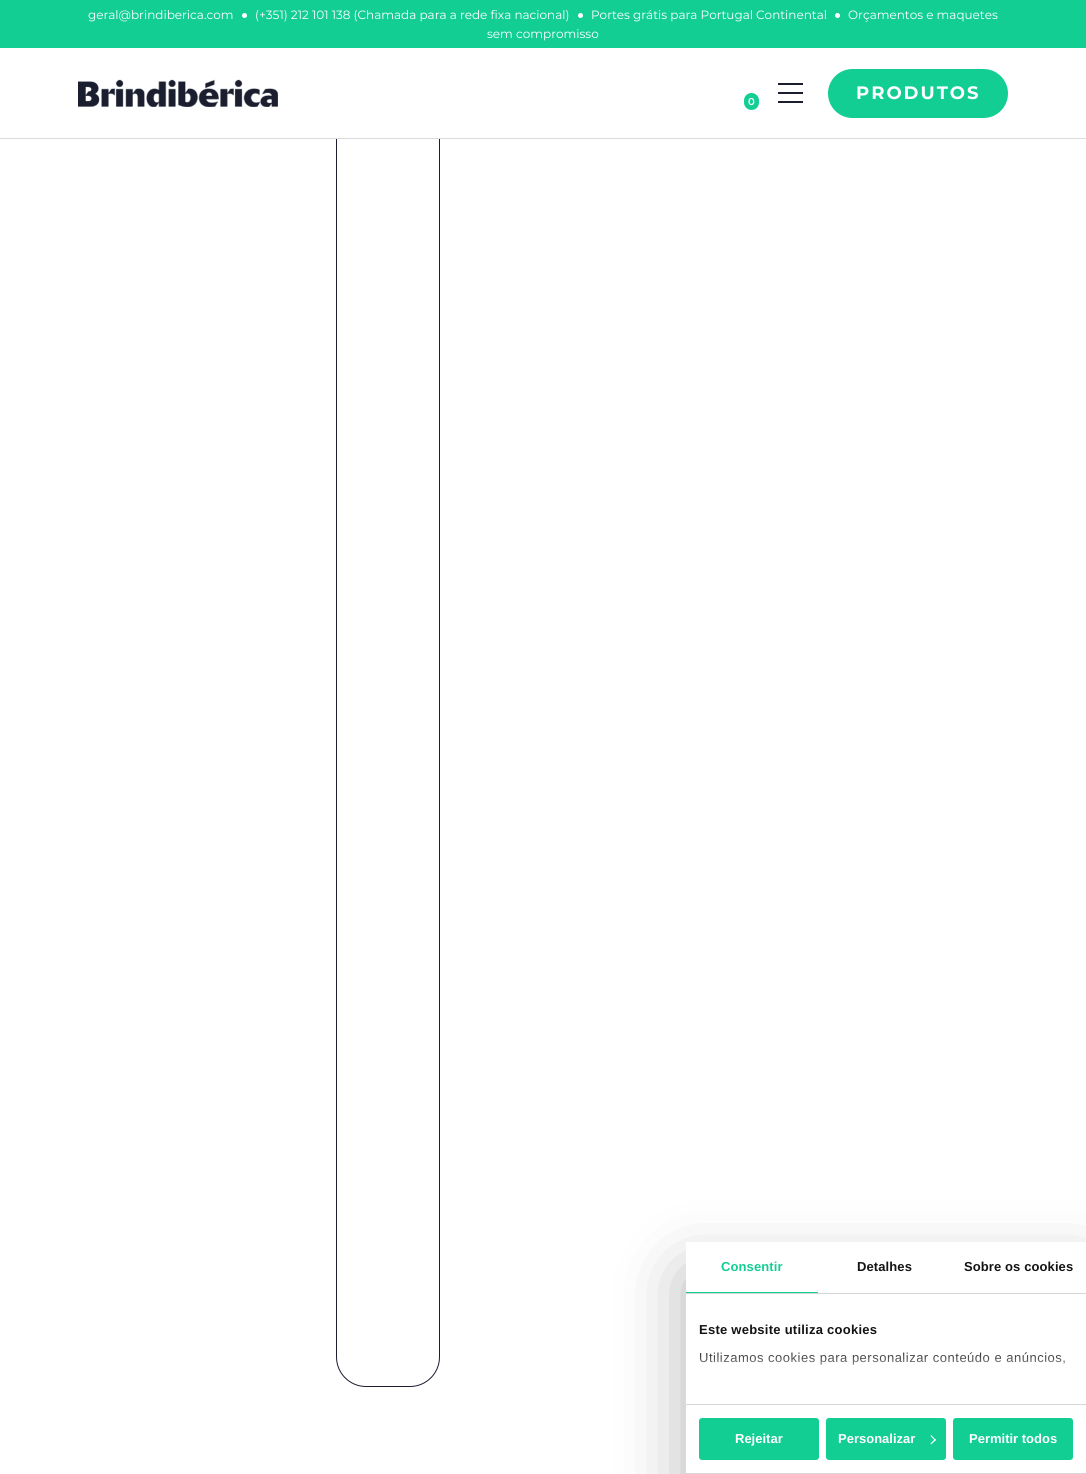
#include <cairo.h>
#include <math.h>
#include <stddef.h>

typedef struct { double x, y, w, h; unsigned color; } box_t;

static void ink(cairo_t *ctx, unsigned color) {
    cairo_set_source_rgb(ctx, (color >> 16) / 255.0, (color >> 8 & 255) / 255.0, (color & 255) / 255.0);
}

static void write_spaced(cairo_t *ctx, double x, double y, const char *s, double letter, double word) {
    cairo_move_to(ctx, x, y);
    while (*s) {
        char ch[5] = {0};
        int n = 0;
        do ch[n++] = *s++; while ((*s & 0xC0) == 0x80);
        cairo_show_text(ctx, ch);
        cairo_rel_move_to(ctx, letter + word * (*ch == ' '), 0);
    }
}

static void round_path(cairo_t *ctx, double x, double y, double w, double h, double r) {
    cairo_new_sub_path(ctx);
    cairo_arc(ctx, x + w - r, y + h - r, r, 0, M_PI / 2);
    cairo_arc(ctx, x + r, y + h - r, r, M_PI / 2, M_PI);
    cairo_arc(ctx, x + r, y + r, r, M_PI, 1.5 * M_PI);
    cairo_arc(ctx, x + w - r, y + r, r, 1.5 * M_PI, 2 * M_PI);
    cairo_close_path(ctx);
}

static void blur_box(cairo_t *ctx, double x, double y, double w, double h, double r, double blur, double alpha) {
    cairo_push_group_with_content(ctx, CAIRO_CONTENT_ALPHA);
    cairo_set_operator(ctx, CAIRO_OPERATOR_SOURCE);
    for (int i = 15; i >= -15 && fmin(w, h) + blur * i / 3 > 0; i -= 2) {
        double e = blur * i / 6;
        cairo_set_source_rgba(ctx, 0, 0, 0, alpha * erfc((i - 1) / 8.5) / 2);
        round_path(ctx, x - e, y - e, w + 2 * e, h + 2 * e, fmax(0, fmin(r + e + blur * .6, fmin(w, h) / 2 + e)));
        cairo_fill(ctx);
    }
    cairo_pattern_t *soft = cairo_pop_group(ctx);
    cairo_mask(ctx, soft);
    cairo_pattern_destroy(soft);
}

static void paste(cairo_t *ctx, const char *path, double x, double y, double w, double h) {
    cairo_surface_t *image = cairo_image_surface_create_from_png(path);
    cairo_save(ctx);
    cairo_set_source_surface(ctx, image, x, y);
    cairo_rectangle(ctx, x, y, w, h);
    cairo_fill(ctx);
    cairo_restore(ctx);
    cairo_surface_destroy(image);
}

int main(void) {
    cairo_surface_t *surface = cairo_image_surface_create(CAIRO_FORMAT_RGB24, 1086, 1474);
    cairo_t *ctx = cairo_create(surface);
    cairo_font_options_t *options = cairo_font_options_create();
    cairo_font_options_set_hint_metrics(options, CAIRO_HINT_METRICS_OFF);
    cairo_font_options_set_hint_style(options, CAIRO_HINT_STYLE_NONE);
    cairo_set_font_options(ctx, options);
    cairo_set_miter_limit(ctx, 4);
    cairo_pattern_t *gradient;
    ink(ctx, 0xFFFFFF);
    cairo_paint(ctx);
    round_path(ctx, 336.5, -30.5, 103, 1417, 29.5);
    ink(ctx, 0x1A1E2F);
    cairo_set_line_width(ctx, 1);
    cairo_stroke(ctx);
    {
        static const box_t items[] = {
            {336, 48, 104, 90, 0xFFFFFF},
            {0, 138, 1086, 1, 0xDBDBDB},
            {0, 0, 1086, 48, 0x12CE92},
        };
        for (size_t i = 0; i < sizeof items / sizeof *items; i++) {
            ink(ctx, items[i].color);
            cairo_rectangle(ctx, items[i].x, items[i].y, items[i].w, items[i].h);
            cairo_fill(ctx);
        }
    }
    cairo_select_font_face(ctx, "Montserrat", CAIRO_FONT_SLANT_NORMAL, CAIRO_FONT_WEIGHT_NORMAL);
    cairo_set_font_size(ctx, 12);
    ink(ctx, 0xFFFFFF);
    cairo_move_to(ctx, 88, 19);
    cairo_show_text(ctx, "geral@brindiberica.com");
    cairo_new_path(ctx);
    cairo_arc(ctx, 244.5, 15.5, 2.5, 0, 2 * M_PI);
    cairo_fill(ctx);
    cairo_move_to(ctx, 255, 19);
    cairo_show_text(ctx, "(+351) 212 101 138 (Chamada para a rede fixa nacional)");
    cairo_new_path(ctx);
    cairo_arc(ctx, 580.5, 15.5, 2.5, 0, 2 * M_PI);
    cairo_fill(ctx);
    cairo_move_to(ctx, 591, 19);
    cairo_show_text(ctx, "Portes grátis para Portugal Continental");
    cairo_new_path(ctx);
    cairo_arc(ctx, 837.5, 15.5, 2.5, 0, 2 * M_PI);
    cairo_fill(ctx);
    cairo_move_to(ctx, 848, 19);
    cairo_show_text(ctx, "Orçamentos e maquetes");
    cairo_move_to(ctx, 487, 38);
    cairo_show_text(ctx, "sem compromisso");
    paste(ctx, "media/1.png", 78, 79, 200, 28);
    {
        static const box_t items[] = {
            {778, 83, 25, 2, 0x1A1E2F},
            {778, 92, 25, 2, 0x1A1E2F},
            {778, 101, 25, 2, 0x1A1E2F},
        };
        for (size_t i = 0; i < sizeof items / sizeof *items; i++) {
            ink(ctx, items[i].color);
            cairo_rectangle(ctx, items[i].x, items[i].y, items[i].w, items[i].h);
            cairo_fill(ctx);
        }
    }
    ink(ctx, 0x12CE92);
    round_path(ctx, 828, 69, 180, 49, 24.5);
    cairo_fill(ctx);
    cairo_select_font_face(ctx, "Montserrat", CAIRO_FONT_SLANT_NORMAL, CAIRO_FONT_WEIGHT_BOLD);
    cairo_set_font_size(ctx, 18);
    ink(ctx, 0xFFFFFF);
    write_spaced(ctx, 856, 99, "PRODUTOS", 2, 0);
    ink(ctx, 0x12CE92);
    round_path(ctx, 743, 92, 17, 19, 8.5);
    cairo_fill_preserve(ctx);
    ink(ctx, 0xFFFFFF);
    cairo_set_line_width(ctx, 2);
    cairo_stroke(ctx);
    cairo_select_font_face(ctx, "Montserrat SemiBold", CAIRO_FONT_SLANT_NORMAL, CAIRO_FONT_WEIGHT_NORMAL);
    cairo_set_font_size(ctx, 10);
    cairo_move_to(ctx, 748, 105);
    cairo_show_text(ctx, "0");
    cairo_save(ctx);
    cairo_set_fill_rule(ctx, CAIRO_FILL_RULE_EVEN_ODD);
    cairo_new_path(ctx);
    cairo_move_to(ctx, 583, 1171);
    cairo_line_to(ctx, 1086, 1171);
    cairo_line_to(ctx, 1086, 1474);
    cairo_line_to(ctx, 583, 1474);
    cairo_close_path(ctx);
    cairo_move_to(ctx, 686, 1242);
    cairo_line_to(ctx, 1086, 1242);
    cairo_line_to(ctx, 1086, 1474);
    cairo_line_to(ctx, 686, 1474);
    cairo_close_path(ctx);
    cairo_clip(ctx);
    ink(ctx, 0x000000);
    blur_box(ctx, 686, 1274, 400, 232, 0, 34, 0.3);
    cairo_restore(ctx);
    ink(ctx, 0xD6D6D6);
    cairo_rectangle(ctx, 686, 1293, 400, 1);
    cairo_fill(ctx);
    ink(ctx, 0x12CE92);
    cairo_rectangle(ctx, 686, 1292, 132, 1);
    cairo_fill(ctx);
    cairo_select_font_face(ctx, "Liberation Sans", CAIRO_FONT_SLANT_NORMAL, CAIRO_FONT_WEIGHT_BOLD);
    cairo_set_font_size(ctx, 13);
    write_spaced(ctx, 721, 1271, "Consentir", 0.1, 0);
    ink(ctx, 0x141414);
    write_spaced(ctx, 857, 1271, "Detalhes", 0.1, 0);
    write_spaced(ctx, 964, 1271, "Sobre os cookies", 0.1, 0);
    ink(ctx, 0xD6D6D6);
    cairo_rectangle(ctx, 686, 1404, 400, 1);
    cairo_fill(ctx);
    ink(ctx, 0x141414);
    write_spaced(ctx, 699, 1334, "Este website utiliza cookies", 0.25, 0);
    cairo_select_font_face(ctx, "Liberation Sans", CAIRO_FONT_SLANT_NORMAL, CAIRO_FONT_WEIGHT_NORMAL);
    write_spaced(ctx, 699, 1362, "Utilizamos cookies para personalizar conteúdo e anúncios,", 0.5, 0);
    gradient = cairo_pattern_create_linear(881, 1404, 881, 1349);
    cairo_pattern_add_color_stop_rgba(gradient, 0, 1, 1, 1, 1);
    cairo_pattern_add_color_stop_rgba(gradient, 0.5, 1, 1, 1, 0.8);
    cairo_pattern_add_color_stop_rgba(gradient, 1, 1, 1, 1, 0);
    cairo_set_source(ctx, gradient);
    cairo_pattern_destroy(gradient);
    cairo_rectangle(ctx, 700, 1352, 365, 13);
    cairo_fill(ctx);
    ink(ctx, 0xD6D6D6);
    cairo_rectangle(ctx, 686, 1473, 400, 1);
    cairo_fill(ctx);
    ink(ctx, 0x12CE92);
    round_path(ctx, 700, 1419, 118, 40, 2);
    cairo_fill_preserve(ctx);
    cairo_stroke(ctx);
    cairo_select_font_face(ctx, "Liberation Sans", CAIRO_FONT_SLANT_NORMAL, CAIRO_FONT_WEIGHT_BOLD);
    ink(ctx, 0xFFFFFF);
    cairo_move_to(ctx, 735, 1443);
    cairo_show_text(ctx, "Rejeitar");
    ink(ctx, 0x12CE92);
    round_path(ctx, 827, 1419, 118, 40, 2);
    cairo_fill_preserve(ctx);
    cairo_stroke(ctx);
    ink(ctx, 0xFFFFFF);
    cairo_move_to(ctx, 838, 1443);
    cairo_show_text(ctx, "Personalizar");
    cairo_new_path(ctx);
    cairo_move_to(ctx, 931, 1435);
    cairo_line_to(ctx, 936, 1440);
    cairo_line_to(ctx, 935, 1440.5);
    cairo_line_to(ctx, 930.5, 1436);
    cairo_close_path(ctx);
    cairo_fill(ctx);
    cairo_new_path(ctx);
    cairo_move_to(ctx, 935, 1439);
    cairo_line_to(ctx, 936, 1440);
    cairo_line_to(ctx, 931, 1444.5);
    cairo_line_to(ctx, 930.5, 1443.5);
    cairo_close_path(ctx);
    cairo_fill(ctx);
    ink(ctx, 0x12CE92);
    round_path(ctx, 954, 1419, 118, 40, 2);
    cairo_fill_preserve(ctx);
    cairo_stroke(ctx);
    ink(ctx, 0xFFFFFF);
    cairo_move_to(ctx, 969, 1443);
    cairo_show_text(ctx, "Permitir todos");
    cairo_surface_write_to_png(surface, "image.png");
    cairo_font_options_destroy(options);
    cairo_destroy(ctx);
    cairo_surface_destroy(surface);
    return 0;
}
